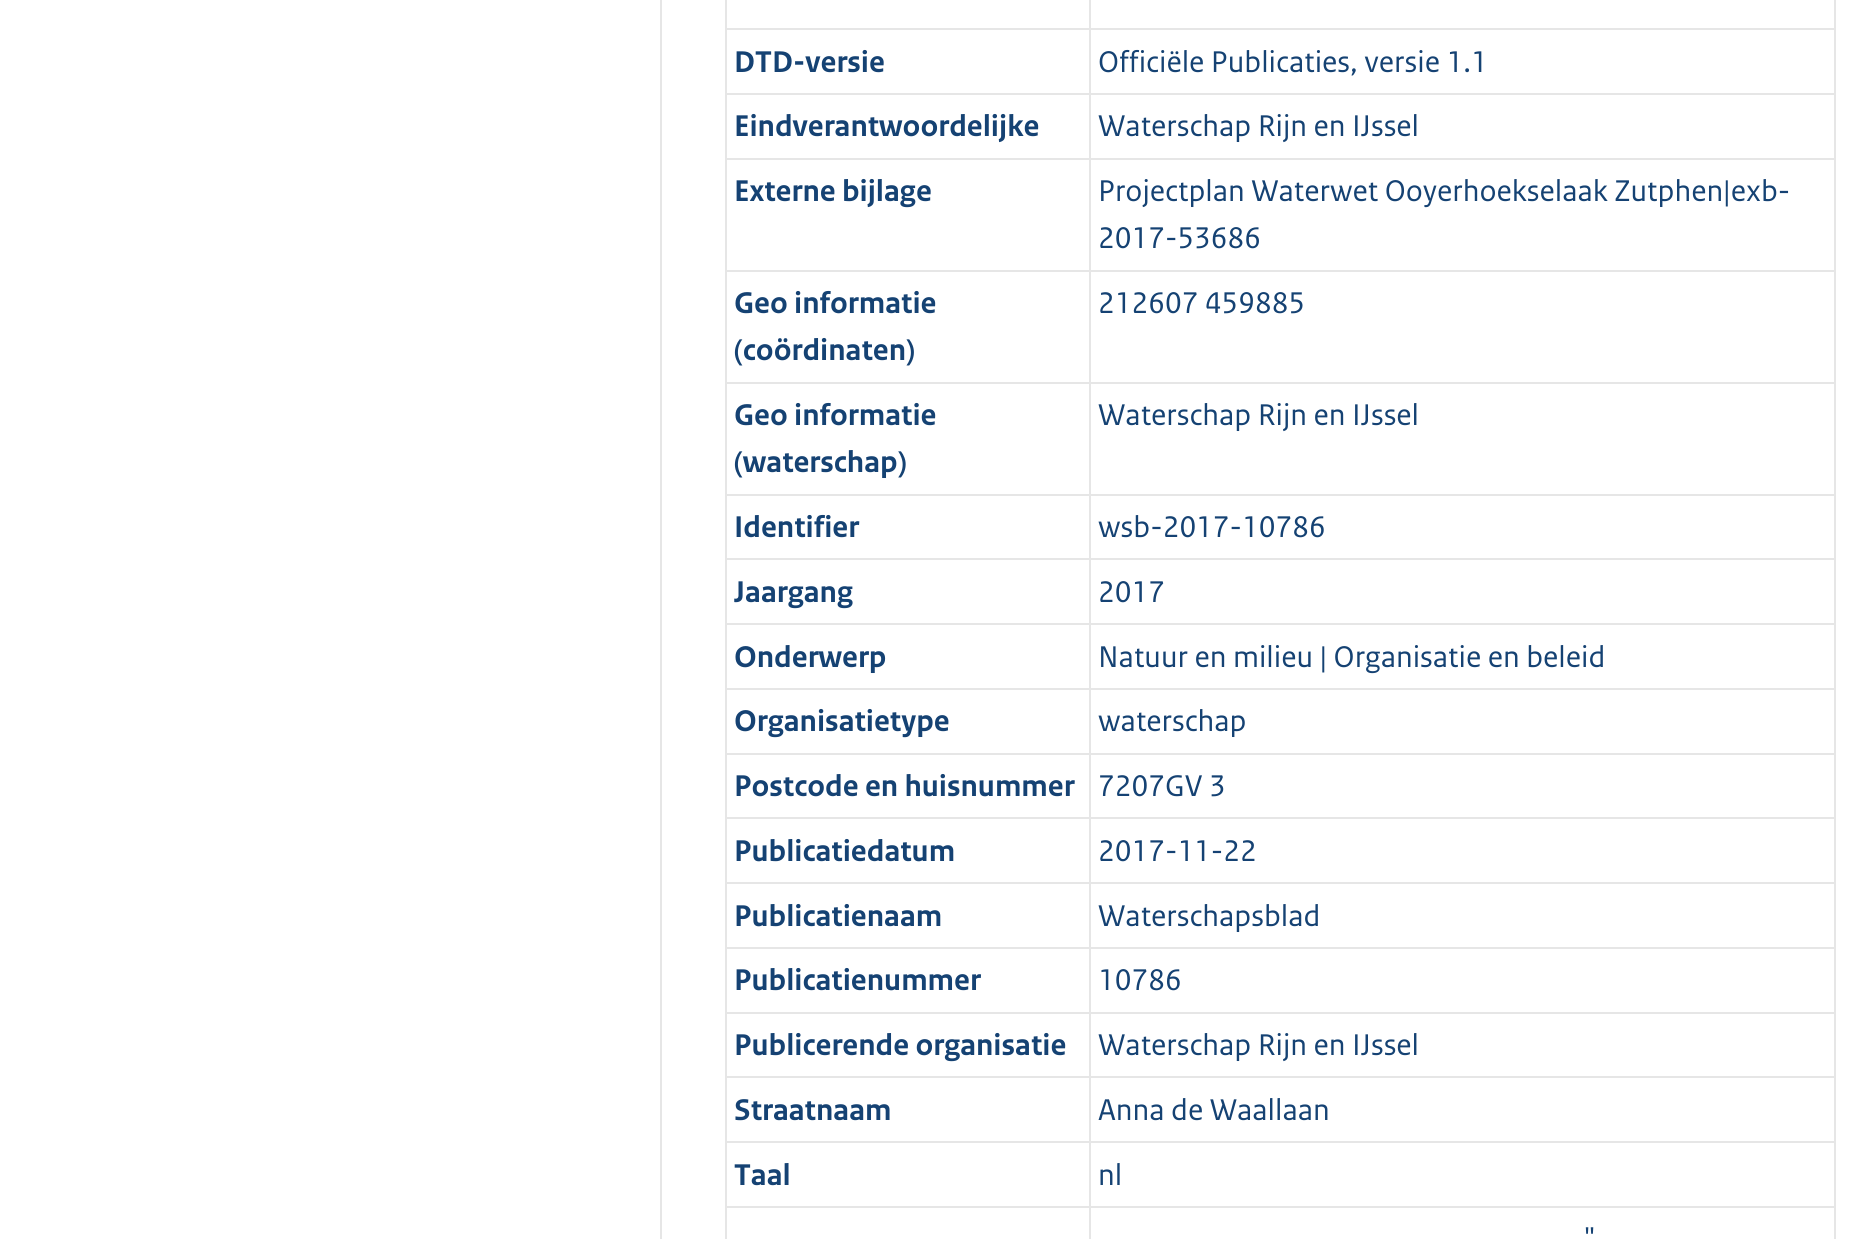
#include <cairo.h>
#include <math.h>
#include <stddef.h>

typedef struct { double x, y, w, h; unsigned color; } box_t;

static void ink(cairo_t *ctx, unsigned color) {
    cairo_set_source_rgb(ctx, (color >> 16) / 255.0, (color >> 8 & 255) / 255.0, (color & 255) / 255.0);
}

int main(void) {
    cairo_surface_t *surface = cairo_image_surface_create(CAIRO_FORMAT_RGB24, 1866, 1239);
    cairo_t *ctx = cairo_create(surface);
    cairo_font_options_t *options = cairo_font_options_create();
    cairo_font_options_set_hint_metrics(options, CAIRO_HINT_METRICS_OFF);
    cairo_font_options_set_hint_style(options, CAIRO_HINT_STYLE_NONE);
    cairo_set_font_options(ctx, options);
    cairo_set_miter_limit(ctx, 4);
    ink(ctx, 0xFFFFFF);
    cairo_paint(ctx);
    ink(ctx, 0xE6E6E6);
    cairo_new_path(ctx);
    cairo_move_to(ctx, 662, -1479);
    cairo_line_to(ctx, 662, 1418);
    cairo_line_to(ctx, 660, 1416);
    cairo_line_to(ctx, 660, -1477);
    cairo_close_path(ctx);
    cairo_fill(ctx);
    {
        static const box_t items[] = {
            {1834, 0, 2, 1239, 0xE6E6E6},
            {725, 0, 2, 1239, 0xE6E6E6},
            {1089, 1206, 2, 33, 0xE6E6E6},
            {1089, 1206, 747, 2, 0xE6E6E6},
            {1089, 1141, 2, 67, 0xE6E6E6},
            {1089, 1141, 747, 2, 0xE6E6E6},
            {1089, 1076, 2, 67, 0xE6E6E6},
            {1089, 1076, 747, 2, 0xE6E6E6},
            {1089, 1012, 2, 66, 0xE6E6E6},
            {1089, 1012, 747, 2, 0xE6E6E6},
            {1089, 947, 2, 66, 0xE6E6E6},
            {1089, 947, 747, 2, 0xE6E6E6},
            {1089, 882, 2, 67, 0xE6E6E6},
            {1089, 882, 747, 2, 0xE6E6E6},
            {1089, 817, 2, 67, 0xE6E6E6},
            {1089, 817, 747, 2, 0xE6E6E6},
            {1089, 753, 2, 66, 0xE6E6E6},
            {1089, 753, 747, 2, 0xE6E6E6},
            {1089, 688, 2, 66, 0xE6E6E6},
            {1089, 688, 747, 2, 0xE6E6E6},
            {1089, 623, 2, 67, 0xE6E6E6},
            {1089, 623, 747, 2, 0xE6E6E6},
            {1089, 558, 2, 67, 0xE6E6E6},
            {1089, 558, 747, 2, 0xE6E6E6},
            {1089, 494, 2, 66, 0xE6E6E6},
            {1089, 494, 747, 2, 0xE6E6E6},
            {1089, 382, 2, 113, 0xE6E6E6},
            {1089, 382, 747, 2, 0xE6E6E6},
            {1089, 270, 2, 113, 0xE6E6E6},
            {1089, 270, 747, 2, 0xE6E6E6},
            {1089, 158, 2, 113, 0xE6E6E6},
            {1089, 158, 747, 2, 0xE6E6E6},
            {1089, 93, 2, 66, 0xE6E6E6},
            {1089, 93, 747, 2, 0xE6E6E6},
            {1089, 28, 2, 67, 0xE6E6E6},
            {1089, 28, 747, 2, 0xE6E6E6},
            {1089, 0, 2, 30, 0xE6E6E6},
            {725, 28, 365, 2, 0xE6E6E6},
            {725, 93, 365, 2, 0xE6E6E6},
        };
        for (size_t i = 0; i < sizeof items / sizeof *items; i++) {
            ink(ctx, items[i].color);
            cairo_rectangle(ctx, items[i].x, items[i].y, items[i].w, items[i].h);
            cairo_fill(ctx);
        }
    }
    cairo_select_font_face(ctx, "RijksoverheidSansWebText", CAIRO_FONT_SLANT_NORMAL, CAIRO_FONT_WEIGHT_BOLD);
    cairo_set_font_size(ctx, 31.5);
    ink(ctx, 0x154273);
    cairo_move_to(ctx, 734, 72);
    cairo_show_text(ctx, "DTD-versie");
    cairo_select_font_face(ctx, "RijksoverheidSansWebText", CAIRO_FONT_SLANT_NORMAL, CAIRO_FONT_WEIGHT_NORMAL);
    cairo_move_to(ctx, 1098, 72);
    cairo_show_text(ctx, "Officiële Publicaties, versie 1.1");
    ink(ctx, 0xE6E6E6);
    cairo_rectangle(ctx, 725, 158, 365, 2);
    cairo_fill(ctx);
    cairo_select_font_face(ctx, "RijksoverheidSansWebText", CAIRO_FONT_SLANT_NORMAL, CAIRO_FONT_WEIGHT_BOLD);
    ink(ctx, 0x154273);
    cairo_move_to(ctx, 734, 136);
    cairo_show_text(ctx, "Eindverantwoordelijke");
    cairo_select_font_face(ctx, "RijksoverheidSansWebText", CAIRO_FONT_SLANT_NORMAL, CAIRO_FONT_WEIGHT_NORMAL);
    cairo_move_to(ctx, 1098, 136);
    cairo_show_text(ctx, "Waterschap Rijn en IJssel");
    ink(ctx, 0xE6E6E6);
    cairo_rectangle(ctx, 725, 270, 365, 2);
    cairo_fill(ctx);
    cairo_select_font_face(ctx, "RijksoverheidSansWebText", CAIRO_FONT_SLANT_NORMAL, CAIRO_FONT_WEIGHT_BOLD);
    ink(ctx, 0x154273);
    cairo_move_to(ctx, 734, 201);
    cairo_show_text(ctx, "Externe bijlage");
    cairo_select_font_face(ctx, "RijksoverheidSansWebText", CAIRO_FONT_SLANT_NORMAL, CAIRO_FONT_WEIGHT_NORMAL);
    cairo_move_to(ctx, 1098, 201);
    cairo_show_text(ctx, "Projectplan Waterwet Ooyerhoekselaak Zutphen|exb-");
    cairo_move_to(ctx, 1098, 248);
    cairo_show_text(ctx, "2017-53686");
    ink(ctx, 0xE6E6E6);
    cairo_rectangle(ctx, 725, 382, 365, 2);
    cairo_fill(ctx);
    cairo_select_font_face(ctx, "RijksoverheidSansWebText", CAIRO_FONT_SLANT_NORMAL, CAIRO_FONT_WEIGHT_BOLD);
    ink(ctx, 0x154273);
    cairo_move_to(ctx, 734, 313);
    cairo_show_text(ctx, "Geo informatie");
    cairo_move_to(ctx, 734, 360);
    cairo_show_text(ctx, "(coördinaten)");
    cairo_select_font_face(ctx, "RijksoverheidSansWebText", CAIRO_FONT_SLANT_NORMAL, CAIRO_FONT_WEIGHT_NORMAL);
    cairo_move_to(ctx, 1098, 313);
    cairo_show_text(ctx, "212607 459885");
    ink(ctx, 0xE6E6E6);
    cairo_rectangle(ctx, 725, 494, 365, 2);
    cairo_fill(ctx);
    cairo_select_font_face(ctx, "RijksoverheidSansWebText", CAIRO_FONT_SLANT_NORMAL, CAIRO_FONT_WEIGHT_BOLD);
    ink(ctx, 0x154273);
    cairo_move_to(ctx, 734, 425);
    cairo_show_text(ctx, "Geo informatie");
    cairo_move_to(ctx, 734, 472);
    cairo_show_text(ctx, "(waterschap)");
    cairo_select_font_face(ctx, "RijksoverheidSansWebText", CAIRO_FONT_SLANT_NORMAL, CAIRO_FONT_WEIGHT_NORMAL);
    cairo_move_to(ctx, 1098, 425);
    cairo_show_text(ctx, "Waterschap Rijn en IJssel");
    ink(ctx, 0xE6E6E6);
    cairo_rectangle(ctx, 725, 558, 365, 2);
    cairo_fill(ctx);
    cairo_select_font_face(ctx, "RijksoverheidSansWebText", CAIRO_FONT_SLANT_NORMAL, CAIRO_FONT_WEIGHT_BOLD);
    ink(ctx, 0x154273);
    cairo_move_to(ctx, 734, 537);
    cairo_show_text(ctx, "Identifier");
    cairo_select_font_face(ctx, "RijksoverheidSansWebText", CAIRO_FONT_SLANT_NORMAL, CAIRO_FONT_WEIGHT_NORMAL);
    cairo_move_to(ctx, 1098, 537);
    cairo_show_text(ctx, "wsb-2017-10786");
    ink(ctx, 0xE6E6E6);
    cairo_rectangle(ctx, 725, 623, 365, 2);
    cairo_fill(ctx);
    cairo_select_font_face(ctx, "RijksoverheidSansWebText", CAIRO_FONT_SLANT_NORMAL, CAIRO_FONT_WEIGHT_BOLD);
    ink(ctx, 0x154273);
    cairo_move_to(ctx, 734, 602);
    cairo_show_text(ctx, "Jaargang");
    cairo_select_font_face(ctx, "RijksoverheidSansWebText", CAIRO_FONT_SLANT_NORMAL, CAIRO_FONT_WEIGHT_NORMAL);
    cairo_move_to(ctx, 1098, 602);
    cairo_show_text(ctx, "2017");
    ink(ctx, 0xE6E6E6);
    cairo_rectangle(ctx, 725, 688, 365, 2);
    cairo_fill(ctx);
    cairo_select_font_face(ctx, "RijksoverheidSansWebText", CAIRO_FONT_SLANT_NORMAL, CAIRO_FONT_WEIGHT_BOLD);
    ink(ctx, 0x154273);
    cairo_move_to(ctx, 734, 667);
    cairo_show_text(ctx, "Onderwerp");
    cairo_select_font_face(ctx, "RijksoverheidSansWebText", CAIRO_FONT_SLANT_NORMAL, CAIRO_FONT_WEIGHT_NORMAL);
    cairo_move_to(ctx, 1098, 667);
    cairo_show_text(ctx, "Natuur en milieu | Organisatie en beleid");
    ink(ctx, 0xE6E6E6);
    cairo_rectangle(ctx, 725, 753, 365, 2);
    cairo_fill(ctx);
    cairo_select_font_face(ctx, "RijksoverheidSansWebText", CAIRO_FONT_SLANT_NORMAL, CAIRO_FONT_WEIGHT_BOLD);
    ink(ctx, 0x154273);
    cairo_move_to(ctx, 734, 731);
    cairo_show_text(ctx, "Organisatietype");
    cairo_select_font_face(ctx, "RijksoverheidSansWebText", CAIRO_FONT_SLANT_NORMAL, CAIRO_FONT_WEIGHT_NORMAL);
    cairo_move_to(ctx, 1098, 731);
    cairo_show_text(ctx, "waterschap");
    ink(ctx, 0xE6E6E6);
    cairo_rectangle(ctx, 725, 817, 365, 2);
    cairo_fill(ctx);
    cairo_select_font_face(ctx, "RijksoverheidSansWebText", CAIRO_FONT_SLANT_NORMAL, CAIRO_FONT_WEIGHT_BOLD);
    ink(ctx, 0x154273);
    cairo_move_to(ctx, 734, 796);
    cairo_show_text(ctx, "Postcode en huisnummer");
    cairo_select_font_face(ctx, "RijksoverheidSansWebText", CAIRO_FONT_SLANT_NORMAL, CAIRO_FONT_WEIGHT_NORMAL);
    cairo_move_to(ctx, 1098, 796);
    cairo_show_text(ctx, "7207GV 3");
    ink(ctx, 0xE6E6E6);
    cairo_rectangle(ctx, 725, 882, 365, 2);
    cairo_fill(ctx);
    cairo_select_font_face(ctx, "RijksoverheidSansWebText", CAIRO_FONT_SLANT_NORMAL, CAIRO_FONT_WEIGHT_BOLD);
    ink(ctx, 0x154273);
    cairo_move_to(ctx, 734, 861);
    cairo_show_text(ctx, "Publicatiedatum");
    cairo_select_font_face(ctx, "RijksoverheidSansWebText", CAIRO_FONT_SLANT_NORMAL, CAIRO_FONT_WEIGHT_NORMAL);
    cairo_move_to(ctx, 1098, 861);
    cairo_show_text(ctx, "2017-11-22");
    ink(ctx, 0xE6E6E6);
    cairo_rectangle(ctx, 725, 947, 365, 2);
    cairo_fill(ctx);
    cairo_select_font_face(ctx, "RijksoverheidSansWebText", CAIRO_FONT_SLANT_NORMAL, CAIRO_FONT_WEIGHT_BOLD);
    ink(ctx, 0x154273);
    cairo_move_to(ctx, 734, 926);
    cairo_show_text(ctx, "Publicatienaam");
    cairo_select_font_face(ctx, "RijksoverheidSansWebText", CAIRO_FONT_SLANT_NORMAL, CAIRO_FONT_WEIGHT_NORMAL);
    cairo_move_to(ctx, 1098, 926);
    cairo_show_text(ctx, "Waterschapsblad");
    ink(ctx, 0xE6E6E6);
    cairo_rectangle(ctx, 725, 1012, 365, 2);
    cairo_fill(ctx);
    cairo_select_font_face(ctx, "RijksoverheidSansWebText", CAIRO_FONT_SLANT_NORMAL, CAIRO_FONT_WEIGHT_BOLD);
    ink(ctx, 0x154273);
    cairo_move_to(ctx, 734, 990);
    cairo_show_text(ctx, "Publicatienummer");
    cairo_select_font_face(ctx, "RijksoverheidSansWebText", CAIRO_FONT_SLANT_NORMAL, CAIRO_FONT_WEIGHT_NORMAL);
    cairo_move_to(ctx, 1098, 990);
    cairo_show_text(ctx, "10786");
    ink(ctx, 0xE6E6E6);
    cairo_rectangle(ctx, 725, 1076, 365, 2);
    cairo_fill(ctx);
    cairo_select_font_face(ctx, "RijksoverheidSansWebText", CAIRO_FONT_SLANT_NORMAL, CAIRO_FONT_WEIGHT_BOLD);
    ink(ctx, 0x154273);
    cairo_move_to(ctx, 734, 1055);
    cairo_show_text(ctx, "Publicerende organisatie");
    cairo_select_font_face(ctx, "RijksoverheidSansWebText", CAIRO_FONT_SLANT_NORMAL, CAIRO_FONT_WEIGHT_NORMAL);
    cairo_move_to(ctx, 1098, 1055);
    cairo_show_text(ctx, "Waterschap Rijn en IJssel");
    ink(ctx, 0xE6E6E6);
    cairo_rectangle(ctx, 725, 1141, 365, 2);
    cairo_fill(ctx);
    cairo_select_font_face(ctx, "RijksoverheidSansWebText", CAIRO_FONT_SLANT_NORMAL, CAIRO_FONT_WEIGHT_BOLD);
    ink(ctx, 0x154273);
    cairo_move_to(ctx, 734, 1120);
    cairo_show_text(ctx, "Straatnaam");
    cairo_select_font_face(ctx, "RijksoverheidSansWebText", CAIRO_FONT_SLANT_NORMAL, CAIRO_FONT_WEIGHT_NORMAL);
    cairo_move_to(ctx, 1098, 1120);
    cairo_show_text(ctx, "Anna de Waallaan");
    ink(ctx, 0xE6E6E6);
    cairo_rectangle(ctx, 725, 1206, 365, 2);
    cairo_fill(ctx);
    cairo_select_font_face(ctx, "RijksoverheidSansWebText", CAIRO_FONT_SLANT_NORMAL, CAIRO_FONT_WEIGHT_BOLD);
    ink(ctx, 0x154273);
    cairo_move_to(ctx, 734, 1185);
    cairo_show_text(ctx, "Taal");
    cairo_select_font_face(ctx, "RijksoverheidSansWebText", CAIRO_FONT_SLANT_NORMAL, CAIRO_FONT_WEIGHT_NORMAL);
    cairo_move_to(ctx, 1098, 1185);
    cairo_show_text(ctx, "nl");
    cairo_move_to(ctx, 1584, 1249);
    cairo_show_text(ctx, "\"");
    cairo_surface_write_to_png(surface, "image.png");
    cairo_font_options_destroy(options);
    cairo_destroy(ctx);
    cairo_surface_destroy(surface);
    return 0;
}
